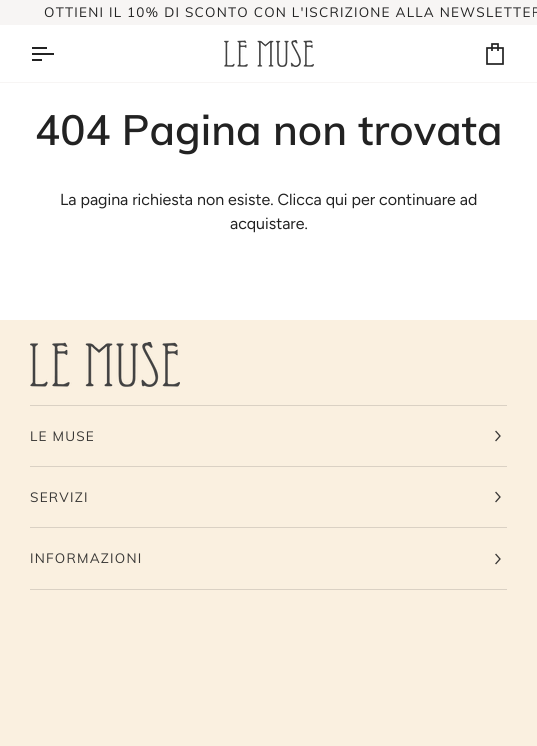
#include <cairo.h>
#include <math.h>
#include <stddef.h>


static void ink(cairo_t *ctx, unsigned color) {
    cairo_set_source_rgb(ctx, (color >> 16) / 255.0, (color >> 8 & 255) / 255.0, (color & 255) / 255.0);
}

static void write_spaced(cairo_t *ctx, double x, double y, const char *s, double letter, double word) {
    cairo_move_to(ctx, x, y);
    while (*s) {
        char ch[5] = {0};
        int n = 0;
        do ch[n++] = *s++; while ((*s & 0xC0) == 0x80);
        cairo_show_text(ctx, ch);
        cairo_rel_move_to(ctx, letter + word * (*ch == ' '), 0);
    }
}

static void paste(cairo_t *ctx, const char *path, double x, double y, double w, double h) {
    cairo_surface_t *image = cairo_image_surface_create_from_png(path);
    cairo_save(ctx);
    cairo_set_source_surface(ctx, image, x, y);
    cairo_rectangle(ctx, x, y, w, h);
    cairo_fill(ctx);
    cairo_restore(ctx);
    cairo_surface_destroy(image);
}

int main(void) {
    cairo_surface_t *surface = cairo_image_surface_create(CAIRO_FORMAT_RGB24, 537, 746);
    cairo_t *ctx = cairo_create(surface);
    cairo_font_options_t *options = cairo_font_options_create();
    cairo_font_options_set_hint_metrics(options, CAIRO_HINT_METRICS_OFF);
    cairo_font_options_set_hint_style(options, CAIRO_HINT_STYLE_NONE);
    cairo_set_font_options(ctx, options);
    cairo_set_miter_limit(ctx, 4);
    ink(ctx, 0xFFFFFF);
    cairo_paint(ctx);
    ink(ctx, 0xF7F5F4);
    cairo_rectangle(ctx, 0, 0, 537, 25);
    cairo_fill(ctx);
    cairo_select_font_face(ctx, "Muli", CAIRO_FONT_SLANT_NORMAL, CAIRO_FONT_WEIGHT_NORMAL);
    cairo_set_font_size(ctx, 13.5);
    ink(ctx, 0x222222);
    write_spaced(ctx, 44, 17, "OTTIENI IL 10% DI SCONTO CON L'ISCRIZIONE ALLA NEWSLETTER", 1.22, 0);
    ink(ctx, 0xF7F5F4);
    cairo_rectangle(ctx, 0, 82, 537, 1);
    cairo_fill(ctx);
    cairo_new_path(ctx);
    cairo_move_to(ctx, 46, 48);
    cairo_line_to(ctx, 33, 48);
    cairo_move_to(ctx, 53, 54);
    cairo_line_to(ctx, 33, 54);
    cairo_move_to(ctx, 41, 60);
    cairo_line_to(ctx, 33, 60);
    ink(ctx, 0x222222);
    cairo_set_line_cap(ctx, CAIRO_LINE_CAP_SQUARE);
    cairo_stroke(ctx);
    paste(ctx, "media/1.png", 224, 40, 90, 27);
    cairo_new_path(ctx);
    cairo_move_to(ctx, 487, 48);
    cairo_line_to(ctx, 503, 48);
    cairo_line_to(ctx, 503, 64);
    cairo_line_to(ctx, 487, 64);
    cairo_close_path(ctx);
    cairo_move_to(ctx, 492, 51);
    cairo_line_to(ctx, 492, 44);
    cairo_line_to(ctx, 498, 44);
    cairo_line_to(ctx, 498, 51);
    cairo_set_line_width(ctx, 1.7);
    cairo_set_line_cap(ctx, CAIRO_LINE_CAP_BUTT);
    cairo_stroke(ctx);
    cairo_select_font_face(ctx, "Muli SemiBold", CAIRO_FONT_SLANT_NORMAL, CAIRO_FONT_WEIGHT_NORMAL);
    cairo_set_font_size(ctx, 42);
    cairo_move_to(ctx, 35, 145);
    cairo_show_text(ctx, "404 Pagina non trovata");
    cairo_select_font_face(ctx, "Figtree", CAIRO_FONT_SLANT_NORMAL, CAIRO_FONT_WEIGHT_NORMAL);
    cairo_set_font_size(ctx, 16);
    cairo_move_to(ctx, 60, 205);
    cairo_show_text(ctx, "La pagina richiesta non esiste. Clicca qui per continuare ad");
    cairo_move_to(ctx, 230, 229);
    cairo_show_text(ctx, "acquistare.");
    ink(ctx, 0xFAF0E0);
    cairo_rectangle(ctx, 0, 320, 537, 426);
    cairo_fill(ctx);
    paste(ctx, "media/2.png", 30, 342, 150, 45);
    ink(ctx, 0xDAD1C4);
    cairo_rectangle(ctx, 30, 405, 477, 1);
    cairo_fill(ctx);
    cairo_rectangle(ctx, 30, 466, 477, 1);
    cairo_fill(ctx);
    cairo_select_font_face(ctx, "Muli", CAIRO_FONT_SLANT_NORMAL, CAIRO_FONT_WEIGHT_NORMAL);
    cairo_set_font_size(ctx, 13.5);
    ink(ctx, 0x383735);
    write_spaced(ctx, 30, 441, "LE MUSE", 1.22, 0);
    cairo_new_path(ctx);
    cairo_move_to(ctx, 496, 440.5);
    cairo_line_to(ctx, 500, 436);
    cairo_line_to(ctx, 496, 431.5);
    cairo_set_line_width(ctx, 1.3);
    cairo_set_line_cap(ctx, CAIRO_LINE_CAP_SQUARE);
    cairo_stroke(ctx);
    ink(ctx, 0xDAD1C4);
    cairo_rectangle(ctx, 30, 527, 477, 1);
    cairo_fill(ctx);
    ink(ctx, 0x383735);
    write_spaced(ctx, 30, 502, "SERVIZI", 1.22, 0);
    cairo_new_path(ctx);
    cairo_move_to(ctx, 496, 501.5);
    cairo_line_to(ctx, 500, 497);
    cairo_line_to(ctx, 496, 492.5);
    cairo_stroke(ctx);
    ink(ctx, 0xDAD1C4);
    cairo_rectangle(ctx, 30, 589, 477, 1);
    cairo_fill(ctx);
    ink(ctx, 0x383735);
    write_spaced(ctx, 30, 563, "INFORMAZIONI", 1.22, 0);
    cairo_new_path(ctx);
    cairo_move_to(ctx, 496, 563.5);
    cairo_line_to(ctx, 500, 559);
    cairo_line_to(ctx, 496, 554.5);
    cairo_stroke(ctx);
    cairo_surface_write_to_png(surface, "image.png");
    cairo_font_options_destroy(options);
    cairo_destroy(ctx);
    cairo_surface_destroy(surface);
    return 0;
}
